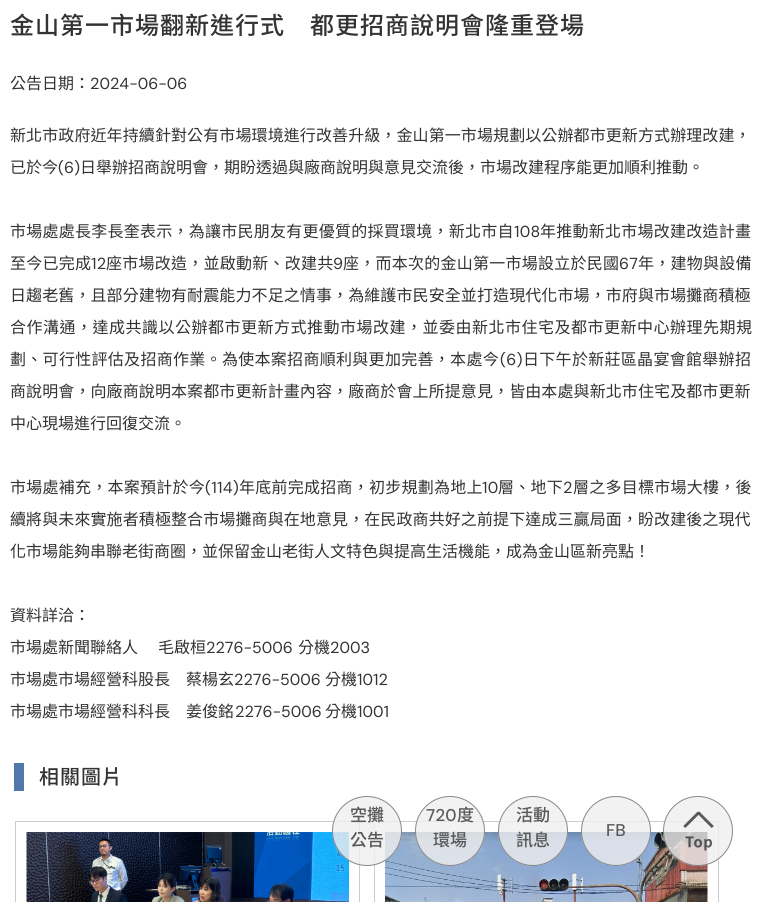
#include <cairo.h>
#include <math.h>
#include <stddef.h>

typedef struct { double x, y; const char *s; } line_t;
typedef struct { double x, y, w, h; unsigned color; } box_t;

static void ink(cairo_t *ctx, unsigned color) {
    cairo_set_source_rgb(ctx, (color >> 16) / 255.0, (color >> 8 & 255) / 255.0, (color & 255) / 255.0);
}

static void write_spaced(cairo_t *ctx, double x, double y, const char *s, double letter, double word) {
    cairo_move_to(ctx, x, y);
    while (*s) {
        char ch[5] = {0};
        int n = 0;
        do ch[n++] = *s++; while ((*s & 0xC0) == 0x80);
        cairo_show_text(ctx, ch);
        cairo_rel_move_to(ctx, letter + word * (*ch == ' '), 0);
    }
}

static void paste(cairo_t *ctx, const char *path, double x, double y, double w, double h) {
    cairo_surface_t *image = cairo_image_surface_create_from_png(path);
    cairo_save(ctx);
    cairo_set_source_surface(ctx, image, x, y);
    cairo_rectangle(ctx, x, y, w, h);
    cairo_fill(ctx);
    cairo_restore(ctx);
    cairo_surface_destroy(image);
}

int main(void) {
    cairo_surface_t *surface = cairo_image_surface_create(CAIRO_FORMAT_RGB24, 761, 902);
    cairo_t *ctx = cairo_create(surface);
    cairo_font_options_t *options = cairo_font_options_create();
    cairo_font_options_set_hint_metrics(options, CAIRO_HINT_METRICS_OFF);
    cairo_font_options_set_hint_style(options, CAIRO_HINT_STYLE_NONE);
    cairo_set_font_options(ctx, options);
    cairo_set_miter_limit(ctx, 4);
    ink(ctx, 0xFFFFFF);
    cairo_paint(ctx);
    cairo_select_font_face(ctx, "Noto Sans TC Medium", CAIRO_FONT_SLANT_NORMAL, CAIRO_FONT_WEIGHT_NORMAL);
    cairo_set_font_size(ctx, 24);
    ink(ctx, 0x333333);
    write_spaced(ctx, 10, 34, "金山第一市場翻新進行式　都更招商說明會隆重登場", 1, 0);
    cairo_select_font_face(ctx, "Noto Sans TC", CAIRO_FONT_SLANT_NORMAL, CAIRO_FONT_WEIGHT_NORMAL);
    cairo_set_font_size(ctx, 16);
    cairo_move_to(ctx, 10, 89);
    cairo_show_text(ctx, "公告日期：");
    cairo_select_font_face(ctx, "DM Sans", CAIRO_FONT_SLANT_NORMAL, CAIRO_FONT_WEIGHT_NORMAL);
    cairo_move_to(ctx, 90, 89);
    cairo_show_text(ctx, "2024-06-06");
    cairo_select_font_face(ctx, "Noto Sans TC", CAIRO_FONT_SLANT_NORMAL, CAIRO_FONT_WEIGHT_NORMAL);
    write_spaced(ctx, 10, 141, "新北市政府近年持續針對公有市場環境進行改善升級，金山第一市場規劃以公辦都市更新方式辦理改建，", 0.1, 0);
    cairo_move_to(ctx, 10, 173);
    cairo_show_text(ctx, "已於今");
    cairo_select_font_face(ctx, "DM Sans", CAIRO_FONT_SLANT_NORMAL, CAIRO_FONT_WEIGHT_NORMAL);
    cairo_move_to(ctx, 58, 173);
    cairo_show_text(ctx, "(6)");
    cairo_select_font_face(ctx, "Noto Sans TC", CAIRO_FONT_SLANT_NORMAL, CAIRO_FONT_WEIGHT_NORMAL);
    cairo_move_to(ctx, 80, 173);
    cairo_show_text(ctx, "日舉辦招商說明會，期盼透過與廠商說明與意見交流後，市場改建程序能更加順利推動。");
    write_spaced(ctx, 10, 237, "市場處處長李長奎表示，為讓市民朋友有更優質的採買環境，新北市自", 0.25, 0);
    cairo_select_font_face(ctx, "DM Sans", CAIRO_FONT_SLANT_NORMAL, CAIRO_FONT_WEIGHT_NORMAL);
    write_spaced(ctx, 514, 237, "108", 0.25, 0);
    cairo_select_font_face(ctx, "Noto Sans TC", CAIRO_FONT_SLANT_NORMAL, CAIRO_FONT_WEIGHT_NORMAL);
    write_spaced(ctx, 540, 237, "年推動新北市場改建改造計畫", 0.25, 0);
    write_spaced(ctx, 10, 269, "至今已完成", 0.25, 0);
    cairo_select_font_face(ctx, "DM Sans", CAIRO_FONT_SLANT_NORMAL, CAIRO_FONT_WEIGHT_NORMAL);
    write_spaced(ctx, 91, 269, "12", 0.25, 0);
    cairo_select_font_face(ctx, "Noto Sans TC", CAIRO_FONT_SLANT_NORMAL, CAIRO_FONT_WEIGHT_NORMAL);
    write_spaced(ctx, 106, 269, "座市場改造，並啟動新、改建共", 0.25, 0);
    cairo_select_font_face(ctx, "DM Sans", CAIRO_FONT_SLANT_NORMAL, CAIRO_FONT_WEIGHT_NORMAL);
    write_spaced(ctx, 333, 269, "9", 0.25, 0);
    cairo_select_font_face(ctx, "Noto Sans TC", CAIRO_FONT_SLANT_NORMAL, CAIRO_FONT_WEIGHT_NORMAL);
    write_spaced(ctx, 343, 269, "座，而本次的金山第一市場設立於民國", 0.25, 0);
    cairo_select_font_face(ctx, "DM Sans", CAIRO_FONT_SLANT_NORMAL, CAIRO_FONT_WEIGHT_NORMAL);
    write_spaced(ctx, 619, 269, "67", 0.25, 0);
    cairo_select_font_face(ctx, "Noto Sans TC", CAIRO_FONT_SLANT_NORMAL, CAIRO_FONT_WEIGHT_NORMAL);
    write_spaced(ctx, 638, 269, "年，建物與設備", 0.25, 0);
    write_spaced(ctx, 10, 301, "日趨老舊，且部分建物有耐震能力不足之情事，為維護市民安全並打造現代化市場，市府與市場攤商積極", 0.1, 0);
    write_spaced(ctx, 10, 333, "合作溝通，達成共識以公辦都市更新方式推動市場改建，並委由新北市住宅及都市更新中心辦理先期規", 0.5, 0);
    write_spaced(ctx, 10, 365, "劃、可行性評估及招商作業。為使本案招商順利與更加完善，本處今", 0.3, 0);
    cairo_select_font_face(ctx, "DM Sans", CAIRO_FONT_SLANT_NORMAL, CAIRO_FONT_WEIGHT_NORMAL);
    write_spaced(ctx, 500, 365, "(6)", 0.3, 0);
    cairo_select_font_face(ctx, "Noto Sans TC", CAIRO_FONT_SLANT_NORMAL, CAIRO_FONT_WEIGHT_NORMAL);
    write_spaced(ctx, 523, 365, "日下午於新莊區晶宴會館舉辦招", 0.3, 0);
    write_spaced(ctx, 10, 397, "商說明會，向廠商說明本案都市更新計畫內容，廠商於會上所提意見，皆由本處與新北市住宅及都市更新", 0.1, 0);
    cairo_move_to(ctx, 10, 429);
    cairo_show_text(ctx, "中心現場進行回復交流。");
    write_spaced(ctx, 10, 493, "市場處補充，本案預計於今", 0.25, 0);
    cairo_select_font_face(ctx, "DM Sans", CAIRO_FONT_SLANT_NORMAL, CAIRO_FONT_WEIGHT_NORMAL);
    write_spaced(ctx, 205, 493, "(114)", 0.25, 0);
    cairo_select_font_face(ctx, "Noto Sans TC", CAIRO_FONT_SLANT_NORMAL, CAIRO_FONT_WEIGHT_NORMAL);
    write_spaced(ctx, 239, 493, "年底前完成招商，初步規劃為地上", 0.25, 0);
    cairo_select_font_face(ctx, "DM Sans", CAIRO_FONT_SLANT_NORMAL, CAIRO_FONT_WEIGHT_NORMAL);
    write_spaced(ctx, 482, 493, "10", 0.25, 0);
    cairo_select_font_face(ctx, "Noto Sans TC", CAIRO_FONT_SLANT_NORMAL, CAIRO_FONT_WEIGHT_NORMAL);
    write_spaced(ctx, 498, 493, "層、地下", 0.25, 0);
    cairo_select_font_face(ctx, "DM Sans", CAIRO_FONT_SLANT_NORMAL, CAIRO_FONT_WEIGHT_NORMAL);
    write_spaced(ctx, 563, 493, "2", 0.25, 0);
    cairo_select_font_face(ctx, "Noto Sans TC", CAIRO_FONT_SLANT_NORMAL, CAIRO_FONT_WEIGHT_NORMAL);
    write_spaced(ctx, 573, 493, "層之多目標市場大樓，後", 0.25, 0);
    write_spaced(ctx, 10, 525, "續將與未來實施者積極整合市場攤商與在地意見，在民政商共好之前提下達成三贏局面，盼改建後之現代", 0.1, 0);
    {
        static const line_t items[] = {
            {10, 557, "化市場能夠串聯老街商圈，並保留金山老街人文特色與提高生活機能，成為金山區新亮點！"},
            {10, 621, "資料詳洽："},
            {10, 653, "市場處新聞聯絡人"},
            {158, 653, "毛啟桓"},
        };
        for (size_t i = 0; i < sizeof items / sizeof *items; i++) {
            cairo_move_to(ctx, items[i].x, items[i].y);
            cairo_show_text(ctx, items[i].s);
        }
    }
    cairo_select_font_face(ctx, "DM Sans", CAIRO_FONT_SLANT_NORMAL, CAIRO_FONT_WEIGHT_NORMAL);
    cairo_move_to(ctx, 206, 653);
    cairo_show_text(ctx, "2276-5006");
    cairo_select_font_face(ctx, "Noto Sans TC", CAIRO_FONT_SLANT_NORMAL, CAIRO_FONT_WEIGHT_NORMAL);
    cairo_move_to(ctx, 298, 653);
    cairo_show_text(ctx, "分機");
    cairo_select_font_face(ctx, "DM Sans", CAIRO_FONT_SLANT_NORMAL, CAIRO_FONT_WEIGHT_NORMAL);
    cairo_move_to(ctx, 330, 653);
    cairo_show_text(ctx, "2003");
    cairo_select_font_face(ctx, "Noto Sans TC", CAIRO_FONT_SLANT_NORMAL, CAIRO_FONT_WEIGHT_NORMAL);
    cairo_move_to(ctx, 10, 685);
    cairo_show_text(ctx, "市場處市場經營科股長　蔡楊玄");
    cairo_select_font_face(ctx, "DM Sans", CAIRO_FONT_SLANT_NORMAL, CAIRO_FONT_WEIGHT_NORMAL);
    cairo_move_to(ctx, 234, 685);
    cairo_show_text(ctx, "2276-5006");
    cairo_select_font_face(ctx, "Noto Sans TC", CAIRO_FONT_SLANT_NORMAL, CAIRO_FONT_WEIGHT_NORMAL);
    cairo_move_to(ctx, 325, 685);
    cairo_show_text(ctx, "分機");
    cairo_select_font_face(ctx, "DM Sans", CAIRO_FONT_SLANT_NORMAL, CAIRO_FONT_WEIGHT_NORMAL);
    cairo_move_to(ctx, 357, 685);
    cairo_show_text(ctx, "1012");
    cairo_select_font_face(ctx, "Noto Sans TC", CAIRO_FONT_SLANT_NORMAL, CAIRO_FONT_WEIGHT_NORMAL);
    cairo_move_to(ctx, 10, 717);
    cairo_show_text(ctx, "市場處市場經營科科長　姜俊銘");
    cairo_select_font_face(ctx, "DM Sans", CAIRO_FONT_SLANT_NORMAL, CAIRO_FONT_WEIGHT_NORMAL);
    cairo_move_to(ctx, 235, 717);
    cairo_show_text(ctx, "2276-5006");
    cairo_select_font_face(ctx, "Noto Sans TC", CAIRO_FONT_SLANT_NORMAL, CAIRO_FONT_WEIGHT_NORMAL);
    cairo_move_to(ctx, 325, 717);
    cairo_show_text(ctx, "分機");
    cairo_select_font_face(ctx, "DM Sans", CAIRO_FONT_SLANT_NORMAL, CAIRO_FONT_WEIGHT_NORMAL);
    cairo_move_to(ctx, 357, 717);
    cairo_show_text(ctx, "1001");
    ink(ctx, 0x5178AD);
    cairo_rectangle(ctx, 14, 763, 10, 28);
    cairo_fill(ctx);
    cairo_select_font_face(ctx, "Noto Sans TC Medium", CAIRO_FONT_SLANT_NORMAL, CAIRO_FONT_WEIGHT_NORMAL);
    cairo_set_font_size(ctx, 20);
    ink(ctx, 0x333333);
    write_spaced(ctx, 39, 784, "相關圖片", 1, 0);
    {
        static const box_t items[] = {
            {15, 821, 345, 1, 0xCCCCCC},
            {359, 821, 1, 81, 0xCCCCCC},
            {15, 821, 1, 81, 0xCCCCCC},
        };
        for (size_t i = 0; i < sizeof items / sizeof *items; i++) {
            ink(ctx, items[i].color);
            cairo_rectangle(ctx, items[i].x, items[i].y, items[i].w, items[i].h);
            cairo_fill(ctx);
        }
    }
    paste(ctx, "media/1.png", 26, 832, 323, 70);
    {
        static const box_t items[] = {
            {374, 821, 345, 1, 0xCCCCCC},
            {718, 821, 1, 81, 0xCCCCCC},
            {374, 821, 1, 81, 0xCCCCCC},
        };
        for (size_t i = 0; i < sizeof items / sizeof *items; i++) {
            ink(ctx, items[i].color);
            cairo_rectangle(ctx, items[i].x, items[i].y, items[i].w, items[i].h);
            cairo_fill(ctx);
        }
    }
    paste(ctx, "media/2.png", 385, 832, 323, 70);
    cairo_set_source_rgba(ctx, 0.933, 0.933, 0.933, 0.8);
    cairo_arc(ctx, 367, 831, 35, 0, 2 * M_PI);
    cairo_fill(ctx);
    cairo_arc(ctx, 367, 831, 34.5, 0, 2 * M_PI);
    cairo_set_source_rgba(ctx, 0.439, 0.439, 0.439, 0.8);
    cairo_set_line_width(ctx, 1);
    cairo_stroke(ctx);
    cairo_set_font_size(ctx, 17);
    ink(ctx, 0x595959);
    cairo_move_to(ctx, 350, 821);
    cairo_show_text(ctx, "空攤");
    cairo_move_to(ctx, 350, 846);
    cairo_show_text(ctx, "公告");
    cairo_set_source_rgba(ctx, 0.933, 0.933, 0.933, 0.8);
    cairo_new_path(ctx);
    cairo_arc(ctx, 450, 831, 35, 0, 2 * M_PI);
    cairo_fill(ctx);
    cairo_arc(ctx, 450, 831, 34.5, 0, 2 * M_PI);
    cairo_set_source_rgba(ctx, 0.439, 0.439, 0.439, 0.8);
    cairo_stroke(ctx);
    cairo_select_font_face(ctx, "DM Sans Medium", CAIRO_FONT_SLANT_NORMAL, CAIRO_FONT_WEIGHT_NORMAL);
    ink(ctx, 0x595959);
    cairo_move_to(ctx, 426, 821);
    cairo_show_text(ctx, "720");
    cairo_select_font_face(ctx, "Noto Sans TC Medium", CAIRO_FONT_SLANT_NORMAL, CAIRO_FONT_WEIGHT_NORMAL);
    cairo_move_to(ctx, 457, 821);
    cairo_show_text(ctx, "度");
    cairo_move_to(ctx, 433, 846);
    cairo_show_text(ctx, "環場");
    cairo_set_source_rgba(ctx, 0.933, 0.933, 0.933, 0.8);
    cairo_new_path(ctx);
    cairo_arc(ctx, 533, 831, 35, 0, 2 * M_PI);
    cairo_fill(ctx);
    cairo_arc(ctx, 533, 831, 34.5, 0, 2 * M_PI);
    cairo_set_source_rgba(ctx, 0.439, 0.439, 0.439, 0.8);
    cairo_stroke(ctx);
    ink(ctx, 0x595959);
    cairo_move_to(ctx, 516, 821);
    cairo_show_text(ctx, "活動");
    cairo_move_to(ctx, 516, 846);
    cairo_show_text(ctx, "訊息");
    cairo_set_source_rgba(ctx, 0.933, 0.933, 0.933, 0.8);
    cairo_new_path(ctx);
    cairo_arc(ctx, 616, 831, 35, 0, 2 * M_PI);
    cairo_fill(ctx);
    cairo_arc(ctx, 616, 831, 34.5, 0, 2 * M_PI);
    cairo_set_source_rgba(ctx, 0.439, 0.439, 0.439, 0.8);
    cairo_stroke(ctx);
    cairo_select_font_face(ctx, "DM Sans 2 Medium", CAIRO_FONT_SLANT_NORMAL, CAIRO_FONT_WEIGHT_NORMAL);
    ink(ctx, 0x595959);
    cairo_move_to(ctx, 606, 836);
    cairo_show_text(ctx, "FB");
    cairo_set_source_rgba(ctx, 0.933, 0.933, 0.933, 0.8);
    cairo_new_path(ctx);
    cairo_arc(ctx, 698, 831, 35, 0, 2 * M_PI);
    cairo_fill(ctx);
    paste(ctx, "media/3.png", 683, 811, 31, 40);
    cairo_arc(ctx, 698, 831, 34.5, 0, 2 * M_PI);
    cairo_set_source_rgba(ctx, 0.439, 0.439, 0.439, 0.8);
    cairo_stroke(ctx);
    cairo_surface_write_to_png(surface, "image.png");
    cairo_font_options_destroy(options);
    cairo_destroy(ctx);
    cairo_surface_destroy(surface);
    return 0;
}
